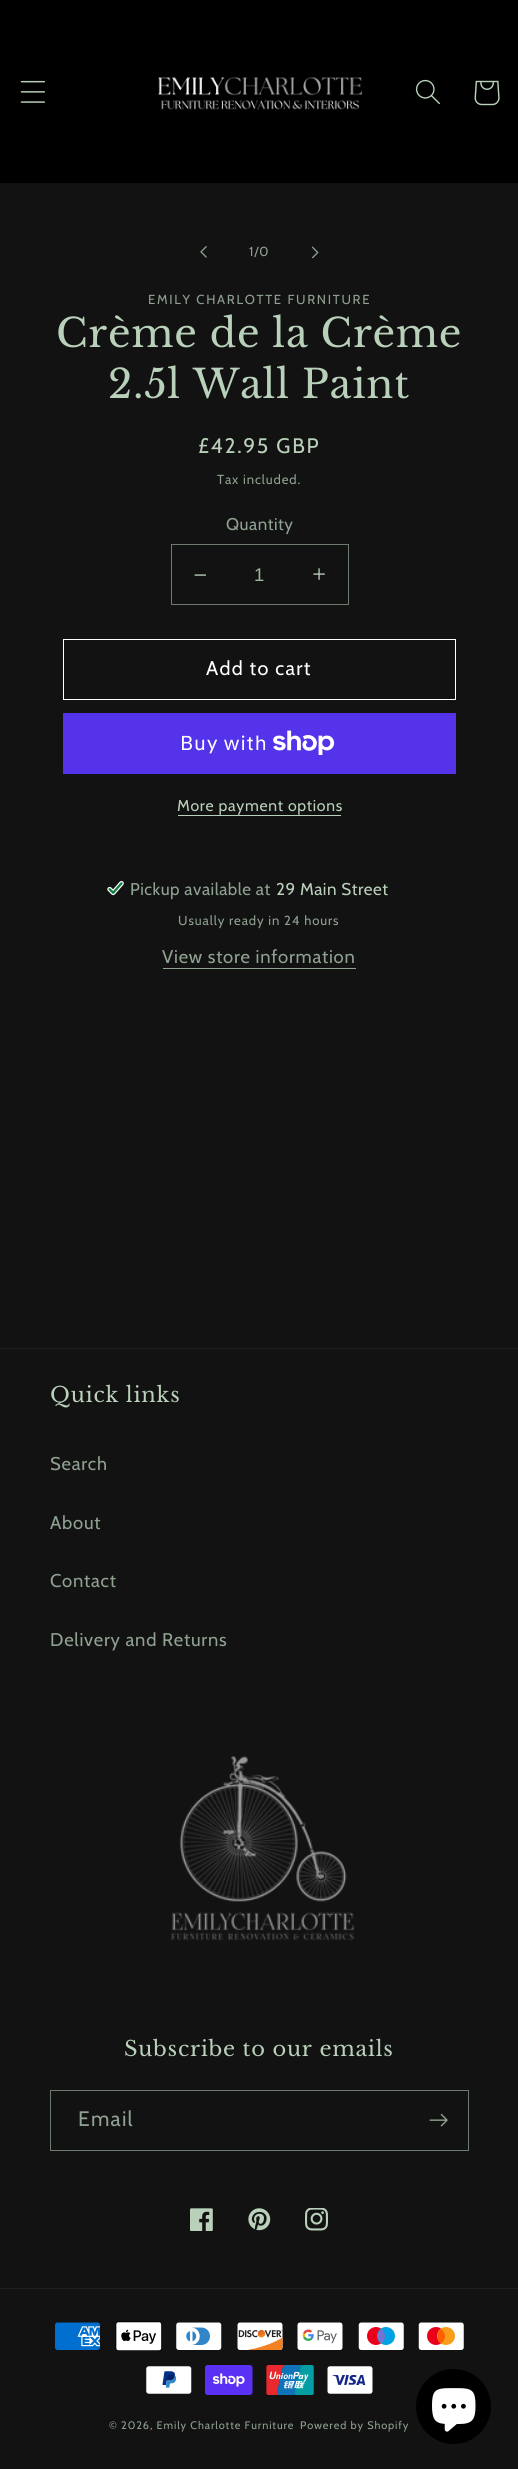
#include <cairo.h>
#include <math.h>
#include <stddef.h>

typedef struct { double x, y; const char *s; } line_t;

static void ink(cairo_t *ctx, unsigned color) {
    cairo_set_source_rgb(ctx, (color >> 16) / 255.0, (color >> 8 & 255) / 255.0, (color & 255) / 255.0);
}

static void write_spaced(cairo_t *ctx, double x, double y, const char *s, double letter, double word) {
    cairo_move_to(ctx, x, y);
    while (*s) {
        char ch[5] = {0};
        int n = 0;
        do ch[n++] = *s++; while ((*s & 0xC0) == 0x80);
        cairo_show_text(ctx, ch);
        cairo_rel_move_to(ctx, letter + word * (*ch == ' '), 0);
    }
}

static void paste(cairo_t *ctx, const char *path, double x, double y, double w, double h) {
    cairo_surface_t *image = cairo_image_surface_create_from_png(path);
    cairo_save(ctx);
    cairo_set_source_surface(ctx, image, x, y);
    cairo_rectangle(ctx, x, y, w, h);
    cairo_fill(ctx);
    cairo_restore(ctx);
    cairo_surface_destroy(image);
}

int main(void) {
    cairo_surface_t *surface = cairo_image_surface_create(CAIRO_FORMAT_RGB24, 518, 2469);
    cairo_t *ctx = cairo_create(surface);
    cairo_font_options_t *options = cairo_font_options_create();
    cairo_font_options_set_hint_metrics(options, CAIRO_HINT_METRICS_OFF);
    cairo_font_options_set_hint_style(options, CAIRO_HINT_STYLE_NONE);
    cairo_set_font_options(ctx, options);
    cairo_set_miter_limit(ctx, 4);
    ink(ctx, 0x121212);
    cairo_paint(ctx);
    ink(ctx, 0x000000);
    cairo_rectangle(ctx, 0, 0, 518, 183);
    cairo_fill(ctx);
    ink(ctx, 0x0F110F);
    cairo_rectangle(ctx, 0, 183, 518, 1);
    cairo_fill(ctx);
    paste(ctx, "media/1.png", 20, 80, 26, 23);
    paste(ctx, "media/2.png", 158, 77, 205, 33);
    paste(ctx, "media/3.png", 415, 79, 25, 26);
    paste(ctx, "media/4.png", 474, 80, 26, 26);
    paste(ctx, "media/5.png", 200, 246, 7, 12);
    cairo_select_font_face(ctx, "Cabin", CAIRO_FONT_SLANT_NORMAL, CAIRO_FONT_WEIGHT_NORMAL);
    cairo_set_font_size(ctx, 13.1);
    ink(ctx, 0x8FA190);
    write_spaced(ctx, 249, 256, "1/0", 0.9, 0);
    paste(ctx, "media/6.png", 312, 246, 7, 13);
    write_spaced(ctx, 148, 304, "EMILY CHARLOTTE FURNITURE", 1.7, 0);
    cairo_select_font_face(ctx, "Libre Baskerville", CAIRO_FONT_SLANT_NORMAL, CAIRO_FONT_WEIGHT_NORMAL);
    cairo_set_font_size(ctx, 39.4);
    ink(ctx, 0xB9D0BA);
    write_spaced(ctx, 56, 347, "Crème de la Crème", 0.75, 0);
    write_spaced(ctx, 108, 398, "2.5l Wall Paint", 0.75, 0);
    cairo_select_font_face(ctx, "Cabin", CAIRO_FONT_SLANT_NORMAL, CAIRO_FONT_WEIGHT_NORMAL);
    cairo_set_font_size(ctx, 21);
    write_spaced(ctx, 198, 453, "£42.95 GBP", 1.7, 0);
    cairo_set_font_size(ctx, 13.1);
    ink(ctx, 0x8FA190);
    write_spaced(ctx, 217, 484, "Tax included.", 0.9, 0);
    cairo_set_font_size(ctx, 17);
    write_spaced(ctx, 226, 530, "Quantity", 0.5, 0);
    paste(ctx, "media/7.png", 194, 574, 12, 2);
    paste(ctx, "media/8.png", 313, 568, 12, 12);
    cairo_rectangle(ctx, 171.5, 544.5, 177, 60);
    ink(ctx, 0x6E7B6E);
    cairo_set_line_width(ctx, 1);
    cairo_stroke(ctx);
    cairo_select_font_face(ctx, "Liberation Sans", CAIRO_FONT_SLANT_NORMAL, CAIRO_FONT_WEIGHT_NORMAL);
    cairo_set_font_size(ctx, 18.4);
    ink(ctx, 0xA0B4A1);
    cairo_move_to(ctx, 254, 581);
    cairo_show_text(ctx, "1");
    cairo_rectangle(ctx, 63.5, 639.5, 392, 60);
    ink(ctx, 0xFFFFFF);
    cairo_stroke(ctx);
    cairo_select_font_face(ctx, "Cabin", CAIRO_FONT_SLANT_NORMAL, CAIRO_FONT_WEIGHT_NORMAL);
    cairo_set_font_size(ctx, 19.75);
    write_spaced(ctx, 206, 675, "Add to cart", 1.25, 0);
    ink(ctx, 0x5433EB);
    cairo_rectangle(ctx, 63, 713, 393, 61);
    cairo_fill(ctx);
    cairo_select_font_face(ctx, "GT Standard", CAIRO_FONT_SLANT_NORMAL, CAIRO_FONT_WEIGHT_NORMAL);
    cairo_set_font_size(ctx, 20);
    ink(ctx, 0xFFFFFF);
    write_spaced(ctx, 180, 750, "Buy with", 0.75, 0);
    paste(ctx, "media/9.png", 273, 730, 62, 25);
    cairo_select_font_face(ctx, "Cabin", CAIRO_FONT_SLANT_NORMAL, CAIRO_FONT_WEIGHT_NORMAL);
    cairo_set_font_size(ctx, 15.75);
    ink(ctx, 0xB9D0BA);
    write_spaced(ctx, 177, 811, "More payment options", 0.7, 0);
    cairo_rectangle(ctx, 178, 815, 163, 1);
    cairo_fill(ctx);
    paste(ctx, "media/10.png", 107, 881, 17, 15);
    cairo_set_font_size(ctx, 17);
    ink(ctx, 0x8FA190);
    write_spaced(ctx, 130, 895, "Pickup available at", 0.5, 0);
    ink(ctx, 0xB9D0BA);
    write_spaced(ctx, 276, 895, "29 Main Street", 0.5, 0);
    cairo_set_font_size(ctx, 13.1);
    ink(ctx, 0x8FA190);
    write_spaced(ctx, 178, 925, "Usually ready in 24 hours", 0.9, 0);
    cairo_set_font_size(ctx, 18.4);
    write_spaced(ctx, 162, 963, "View store information", 0.75, 0);
    cairo_rectangle(ctx, 163, 968, 193, 1);
    cairo_fill(ctx);
    ink(ctx, 0x1F211F);
    cairo_rectangle(ctx, 0, 1348, 518, 1);
    cairo_fill(ctx);
    cairo_select_font_face(ctx, "Libre Baskerville", CAIRO_FONT_SLANT_NORMAL, CAIRO_FONT_WEIGHT_NORMAL);
    cairo_set_font_size(ctx, 21);
    ink(ctx, 0xB9D0BA);
    write_spaced(ctx, 50, 1402, "Quick links", 0.75, 0);
    cairo_select_font_face(ctx, "Cabin", CAIRO_FONT_SLANT_NORMAL, CAIRO_FONT_WEIGHT_NORMAL);
    cairo_set_font_size(ctx, 18.4);
    ink(ctx, 0x8FA190);
    {
        static const line_t items[] = {
            {50, 1470, "Search"},
            {50, 1529, "About"},
            {50, 1587, "Contact"},
            {50, 1646, "Delivery and Returns"},
        };
        for (size_t i = 0; i < sizeof items / sizeof *items; i++) {
            write_spaced(ctx, items[i].x, items[i].y, items[i].s, 0.75, 0);
        }
    }
    paste(ctx, "media/11.png", 171, 1756, 184, 185);
    cairo_select_font_face(ctx, "Libre Baskerville", CAIRO_FONT_SLANT_NORMAL, CAIRO_FONT_WEIGHT_NORMAL);
    cairo_set_font_size(ctx, 21);
    ink(ctx, 0xB9D0BA);
    write_spaced(ctx, 124, 2056, "Subscribe to our emails", 0.75, 0);
    cairo_rectangle(ctx, 50.5, 2090.5, 418, 60);
    ink(ctx, 0x6E7B6E);
    cairo_stroke(ctx);
    cairo_select_font_face(ctx, "Cabin", CAIRO_FONT_SLANT_NORMAL, CAIRO_FONT_WEIGHT_NORMAL);
    ink(ctx, 0x8FA190);
    write_spaced(ctx, 78, 2126, "Email", 1.25, 0);
    paste(ctx, "media/12.png", 429, 2113, 19, 14);
    paste(ctx, "media/13.png", 190, 2208, 23, 23);
    paste(ctx, "media/14.png", 248, 2208, 23, 23);
    paste(ctx, "media/15.png", 305, 2208, 23, 23);
    ink(ctx, 0x1F211F);
    cairo_rectangle(ctx, 0, 2288, 518, 1);
    cairo_fill(ctx);
    paste(ctx, "media/16.png", 55, 2322, 45, 28);
    paste(ctx, "media/17.png", 115, 2321, 47, 30);
    paste(ctx, "media/18.png", 176, 2322, 46, 28);
    paste(ctx, "media/19.png", 237, 2322, 46, 28);
    paste(ctx, "media/20.png", 297, 2322, 46, 28);
    paste(ctx, "media/21.png", 358, 2322, 46, 28);
    paste(ctx, "media/22.png", 418, 2322, 46, 28);
    paste(ctx, "media/23.png", 146, 2366, 46, 28);
    paste(ctx, "media/24.png", 205, 2365, 48, 30);
    paste(ctx, "media/25.png", 266, 2365, 48, 30);
    paste(ctx, "media/26.png", 327, 2366, 46, 28);
    cairo_set_font_size(ctx, 10.9);
    ink(ctx, 0x8FA190);
    write_spaced(ctx, 109, 2429, "© 2026, Emily Charlotte Furniture", 0.9, 0);
    write_spaced(ctx, 300, 2429, "Powered by Shopify", 0.9, 0);
    ink(ctx, 0x000000);
    cairo_new_path(ctx);
    cairo_arc(ctx, 453.5, 2406.5, 37.5, 0, 2 * M_PI);
    cairo_fill(ctx);
    paste(ctx, "media/27.png", 432, 2388, 44, 44);
    cairo_surface_write_to_png(surface, "image.png");
    cairo_font_options_destroy(options);
    cairo_destroy(ctx);
    cairo_surface_destroy(surface);
    return 0;
}
